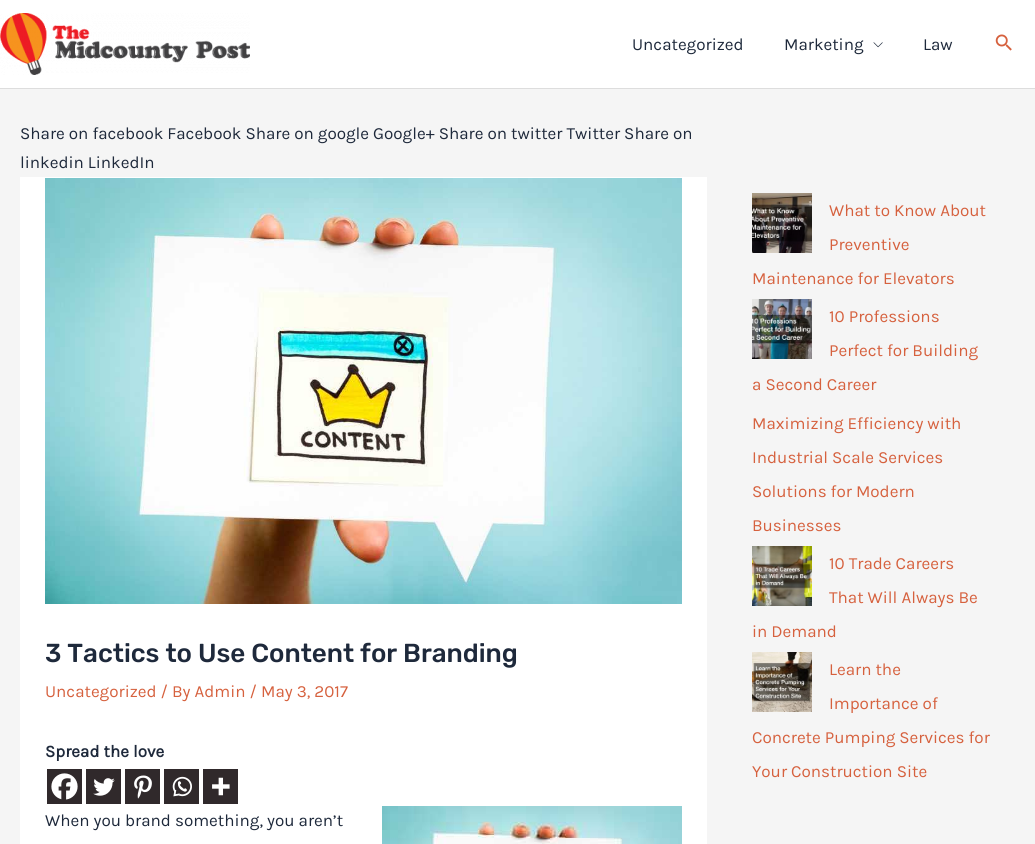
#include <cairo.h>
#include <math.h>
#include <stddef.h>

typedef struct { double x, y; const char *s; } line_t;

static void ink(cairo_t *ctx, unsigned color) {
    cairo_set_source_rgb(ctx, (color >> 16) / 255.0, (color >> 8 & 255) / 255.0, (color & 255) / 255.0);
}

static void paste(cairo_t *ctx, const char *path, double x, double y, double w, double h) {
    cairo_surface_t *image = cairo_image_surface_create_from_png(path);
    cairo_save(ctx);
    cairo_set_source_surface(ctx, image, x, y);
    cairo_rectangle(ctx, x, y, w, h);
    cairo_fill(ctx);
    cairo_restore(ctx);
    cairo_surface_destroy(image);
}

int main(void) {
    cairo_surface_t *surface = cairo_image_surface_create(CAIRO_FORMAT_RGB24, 1035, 844);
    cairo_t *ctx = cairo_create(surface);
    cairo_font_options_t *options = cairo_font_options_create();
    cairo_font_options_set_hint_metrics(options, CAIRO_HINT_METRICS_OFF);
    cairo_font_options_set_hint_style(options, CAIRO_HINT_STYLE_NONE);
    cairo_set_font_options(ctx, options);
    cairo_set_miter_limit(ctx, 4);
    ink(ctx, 0xF5F5F5);
    cairo_paint(ctx);
    ink(ctx, 0xFFFFFF);
    cairo_rectangle(ctx, 0, 0, 1035, 88);
    cairo_fill(ctx);
    ink(ctx, 0xDDDDDD);
    cairo_rectangle(ctx, 0, 88, 1035, 1);
    cairo_fill(ctx);
    paste(ctx, "media/1.png", 0, 13, 250, 62);
    cairo_select_font_face(ctx, "Karla", CAIRO_FONT_SLANT_NORMAL, CAIRO_FONT_WEIGHT_NORMAL);
    cairo_set_font_size(ctx, 17);
    ink(ctx, 0x1E293B);
    cairo_move_to(ctx, 632, 50);
    cairo_show_text(ctx, "Uncategorized");
    cairo_move_to(ctx, 784, 50);
    cairo_show_text(ctx, "Marketing");
    paste(ctx, "media/2.png", 873, 42, 10, 6);
    cairo_move_to(ctx, 923, 50);
    cairo_show_text(ctx, "Law");
    paste(ctx, "media/3.png", 995, 34, 17, 17);
    cairo_move_to(ctx, 20, 139);
    cairo_show_text(ctx, "Share on facebook Facebook Share on google Google+ Share on twitter Twitter Share on");
    cairo_move_to(ctx, 20, 168);
    cairo_show_text(ctx, "linkedin LinkedIn");
    ink(ctx, 0xFFFFFF);
    cairo_rectangle(ctx, 20, 177, 687, 667);
    cairo_fill(ctx);
    paste(ctx, "media/4.png", 45, 178, 637, 426);
    cairo_select_font_face(ctx, "Rubik Light", CAIRO_FONT_SLANT_NORMAL, CAIRO_FONT_WEIGHT_NORMAL);
    cairo_set_font_size(ctx, 26);
    ink(ctx, 0x1E293B);
    cairo_move_to(ctx, 45, 662);
    cairo_show_text(ctx, "3 Tactics to Use Content for Branding");
    cairo_select_font_face(ctx, "Karla", CAIRO_FONT_SLANT_NORMAL, CAIRO_FONT_WEIGHT_NORMAL);
    cairo_set_font_size(ctx, 17);
    ink(ctx, 0xD6613E);
    cairo_move_to(ctx, 45, 697);
    cairo_show_text(ctx, "Uncategorized / By Admin / May 3, 2017");
    cairo_select_font_face(ctx, "Karla", CAIRO_FONT_SLANT_NORMAL, CAIRO_FONT_WEIGHT_BOLD);
    ink(ctx, 0x1E293B);
    cairo_move_to(ctx, 45, 757);
    cairo_show_text(ctx, "Spread the love");
    ink(ctx, 0x30292B);
    cairo_rectangle(ctx, 47, 769, 35, 35);
    cairo_fill(ctx);
    paste(ctx, "media/5.png", 51, 773, 27, 27);
    cairo_rectangle(ctx, 86, 769, 35, 35);
    cairo_fill(ctx);
    paste(ctx, "media/6.png", 93, 778, 22, 18);
    cairo_rectangle(ctx, 125, 769, 35, 35);
    cairo_fill(ctx);
    paste(ctx, "media/7.png", 134, 775, 18, 24);
    cairo_rectangle(ctx, 164, 769, 35, 35);
    cairo_fill(ctx);
    paste(ctx, "media/8.png", 172, 776, 20, 21);
    cairo_rectangle(ctx, 203, 769, 35, 35);
    cairo_fill(ctx);
    paste(ctx, "media/9.png", 212, 777, 18, 19);
    cairo_select_font_face(ctx, "Karla", CAIRO_FONT_SLANT_NORMAL, CAIRO_FONT_WEIGHT_NORMAL);
    ink(ctx, 0x1E293B);
    cairo_move_to(ctx, 45, 826);
    cairo_show_text(ctx, "When you brand something, you aren’t");
    paste(ctx, "media/10.png", 382, 806, 300, 38);
    paste(ctx, "media/11.png", 752, 193, 60, 60);
    ink(ctx, 0xD6613E);
    {
        static const line_t items[] = {
            {829, 216, "What to Know About"},
            {829, 250, "Preventive"},
            {752, 284, "Maintenance for Elevators"},
        };
        for (size_t i = 0; i < sizeof items / sizeof *items; i++) {
            cairo_move_to(ctx, items[i].x, items[i].y);
            cairo_show_text(ctx, items[i].s);
        }
    }
    paste(ctx, "media/12.png", 752, 299, 60, 60);
    {
        static const line_t items[] = {
            {829, 322, "10 Professions"},
            {829, 356, "Perfect for Building"},
            {752, 390, "a Second Career"},
            {752, 429, "Maximizing Efficiency with"},
            {752, 463, "Industrial Scale Services"},
            {752, 497, "Solutions for Modern"},
            {752, 531, "Businesses"},
        };
        for (size_t i = 0; i < sizeof items / sizeof *items; i++) {
            cairo_move_to(ctx, items[i].x, items[i].y);
            cairo_show_text(ctx, items[i].s);
        }
    }
    paste(ctx, "media/13.png", 752, 546, 60, 60);
    {
        static const line_t items[] = {
            {829, 569, "10 Trade Careers"},
            {829, 603, "That Will Always Be"},
            {752, 637, "in Demand"},
        };
        for (size_t i = 0; i < sizeof items / sizeof *items; i++) {
            cairo_move_to(ctx, items[i].x, items[i].y);
            cairo_show_text(ctx, items[i].s);
        }
    }
    paste(ctx, "media/14.png", 752, 652, 60, 60);
    {
        static const line_t items[] = {
            {829, 675, "Learn the"},
            {829, 709, "Importance of"},
            {752, 743, "Concrete Pumping Services for"},
            {752, 777, "Your Construction Site"},
        };
        for (size_t i = 0; i < sizeof items / sizeof *items; i++) {
            cairo_move_to(ctx, items[i].x, items[i].y);
            cairo_show_text(ctx, items[i].s);
        }
    }
    cairo_surface_write_to_png(surface, "image.png");
    cairo_font_options_destroy(options);
    cairo_destroy(ctx);
    cairo_surface_destroy(surface);
    return 0;
}
